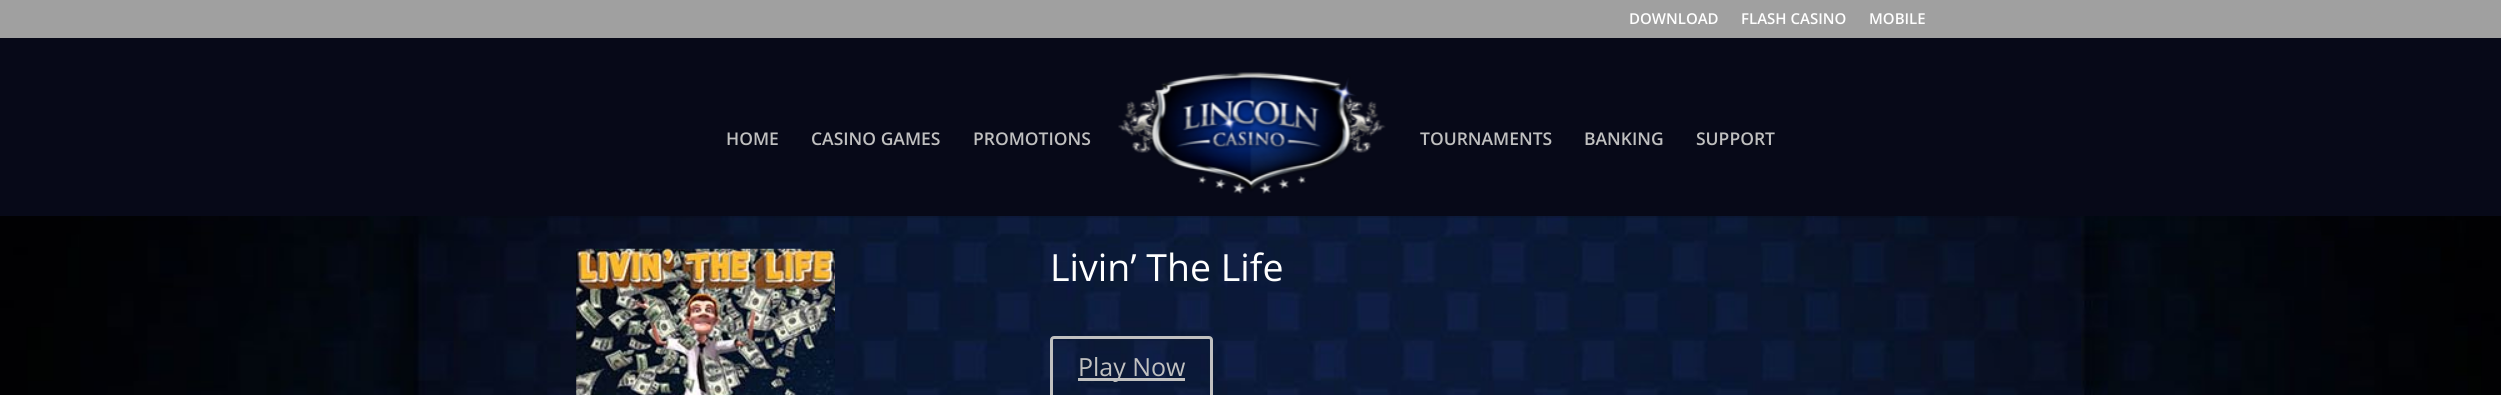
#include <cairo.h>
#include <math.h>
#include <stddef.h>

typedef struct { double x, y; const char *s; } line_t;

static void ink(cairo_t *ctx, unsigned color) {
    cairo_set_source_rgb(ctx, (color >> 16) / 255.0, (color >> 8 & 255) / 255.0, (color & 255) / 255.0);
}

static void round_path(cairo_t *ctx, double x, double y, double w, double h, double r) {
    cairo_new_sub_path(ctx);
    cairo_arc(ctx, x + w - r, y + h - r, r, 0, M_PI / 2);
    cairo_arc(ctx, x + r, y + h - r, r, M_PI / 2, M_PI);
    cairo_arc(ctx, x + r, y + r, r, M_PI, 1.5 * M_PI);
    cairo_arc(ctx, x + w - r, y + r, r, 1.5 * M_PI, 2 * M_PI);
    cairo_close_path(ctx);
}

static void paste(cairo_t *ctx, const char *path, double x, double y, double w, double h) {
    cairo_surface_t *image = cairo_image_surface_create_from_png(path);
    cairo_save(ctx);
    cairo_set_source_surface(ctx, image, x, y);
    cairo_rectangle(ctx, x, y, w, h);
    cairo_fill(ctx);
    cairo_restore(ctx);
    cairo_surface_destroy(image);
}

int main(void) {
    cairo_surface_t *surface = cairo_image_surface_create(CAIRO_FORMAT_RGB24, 2501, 395);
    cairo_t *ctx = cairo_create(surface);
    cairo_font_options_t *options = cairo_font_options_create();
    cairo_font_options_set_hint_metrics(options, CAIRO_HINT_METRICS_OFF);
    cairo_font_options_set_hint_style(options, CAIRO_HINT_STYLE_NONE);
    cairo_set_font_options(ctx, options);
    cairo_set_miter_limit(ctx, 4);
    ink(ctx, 0xFFFFFF);
    cairo_paint(ctx);
    ink(ctx, 0xA0A0A0);
    cairo_rectangle(ctx, 0, 0, 2501, 38);
    cairo_fill(ctx);
    cairo_select_font_face(ctx, "Open Sans SemiBold", CAIRO_FONT_SLANT_NORMAL, CAIRO_FONT_WEIGHT_NORMAL);
    cairo_set_font_size(ctx, 15);
    ink(ctx, 0xFFFFFF);
    {
        static const line_t items[] = {
            {1629, 24, "DOWNLOAD"},
            {1741, 24, "FLASH CASINO"},
            {1869, 24, "MOBILE"},
        };
        for (size_t i = 0; i < sizeof items / sizeof *items; i++) {
            cairo_move_to(ctx, items[i].x, items[i].y);
            cairo_show_text(ctx, items[i].s);
        }
    }
    paste(ctx, "media/2.png", 0, 216, 2501, 179);
    cairo_set_source_rgba(ctx, 0, 0, 0, 0.1);
    cairo_rectangle(ctx, 459, 216, 1623, 2);
    cairo_fill(ctx);
    ink(ctx, 0x070918);
    cairo_rectangle(ctx, 0, 38, 2501, 178);
    cairo_fill(ctx);
    cairo_set_font_size(ctx, 17.5);
    ink(ctx, 0xC0C0C0);
    {
        static const line_t items[] = {
            {726, 145, "HOME"},
            {811, 145, "CASINO GAMES"},
            {973, 145, "PROMOTIONS"},
        };
        for (size_t i = 0; i < sizeof items / sizeof *items; i++) {
            cairo_move_to(ctx, items[i].x, items[i].y);
            cairo_show_text(ctx, items[i].s);
        }
    }
    paste(ctx, "media/1.png", 1118, 72, 268, 122);
    {
        static const line_t items[] = {
            {1420, 145, "TOURNAMENTS"},
            {1584, 145, "BANKING"},
            {1696, 145, "SUPPORT"},
        };
        for (size_t i = 0; i < sizeof items / sizeof *items; i++) {
            cairo_move_to(ctx, items[i].x, items[i].y);
            cairo_show_text(ctx, items[i].s);
        }
    }
    paste(ctx, "media/3.png", 576, 248, 259, 147);
    cairo_select_font_face(ctx, "Open Sans", CAIRO_FONT_SLANT_NORMAL, CAIRO_FONT_WEIGHT_NORMAL);
    cairo_set_font_size(ctx, 37.5);
    ink(ctx, 0xFFFFFF);
    cairo_move_to(ctx, 1050, 281);
    cairo_show_text(ctx, "Livin’ The Life");
    round_path(ctx, 1051.5, 337.5, 160, 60, 2.5);
    ink(ctx, 0xC0C0C0);
    cairo_set_line_width(ctx, 3);
    cairo_stroke(ctx);
    cairo_rectangle(ctx, 1078, 378, 107, 3);
    cairo_fill(ctx);
    cairo_set_font_size(ctx, 25);
    cairo_move_to(ctx, 1078, 376);
    cairo_show_text(ctx, "Play Now");
    cairo_surface_write_to_png(surface, "image.png");
    cairo_font_options_destroy(options);
    cairo_destroy(ctx);
    cairo_surface_destroy(surface);
    return 0;
}
